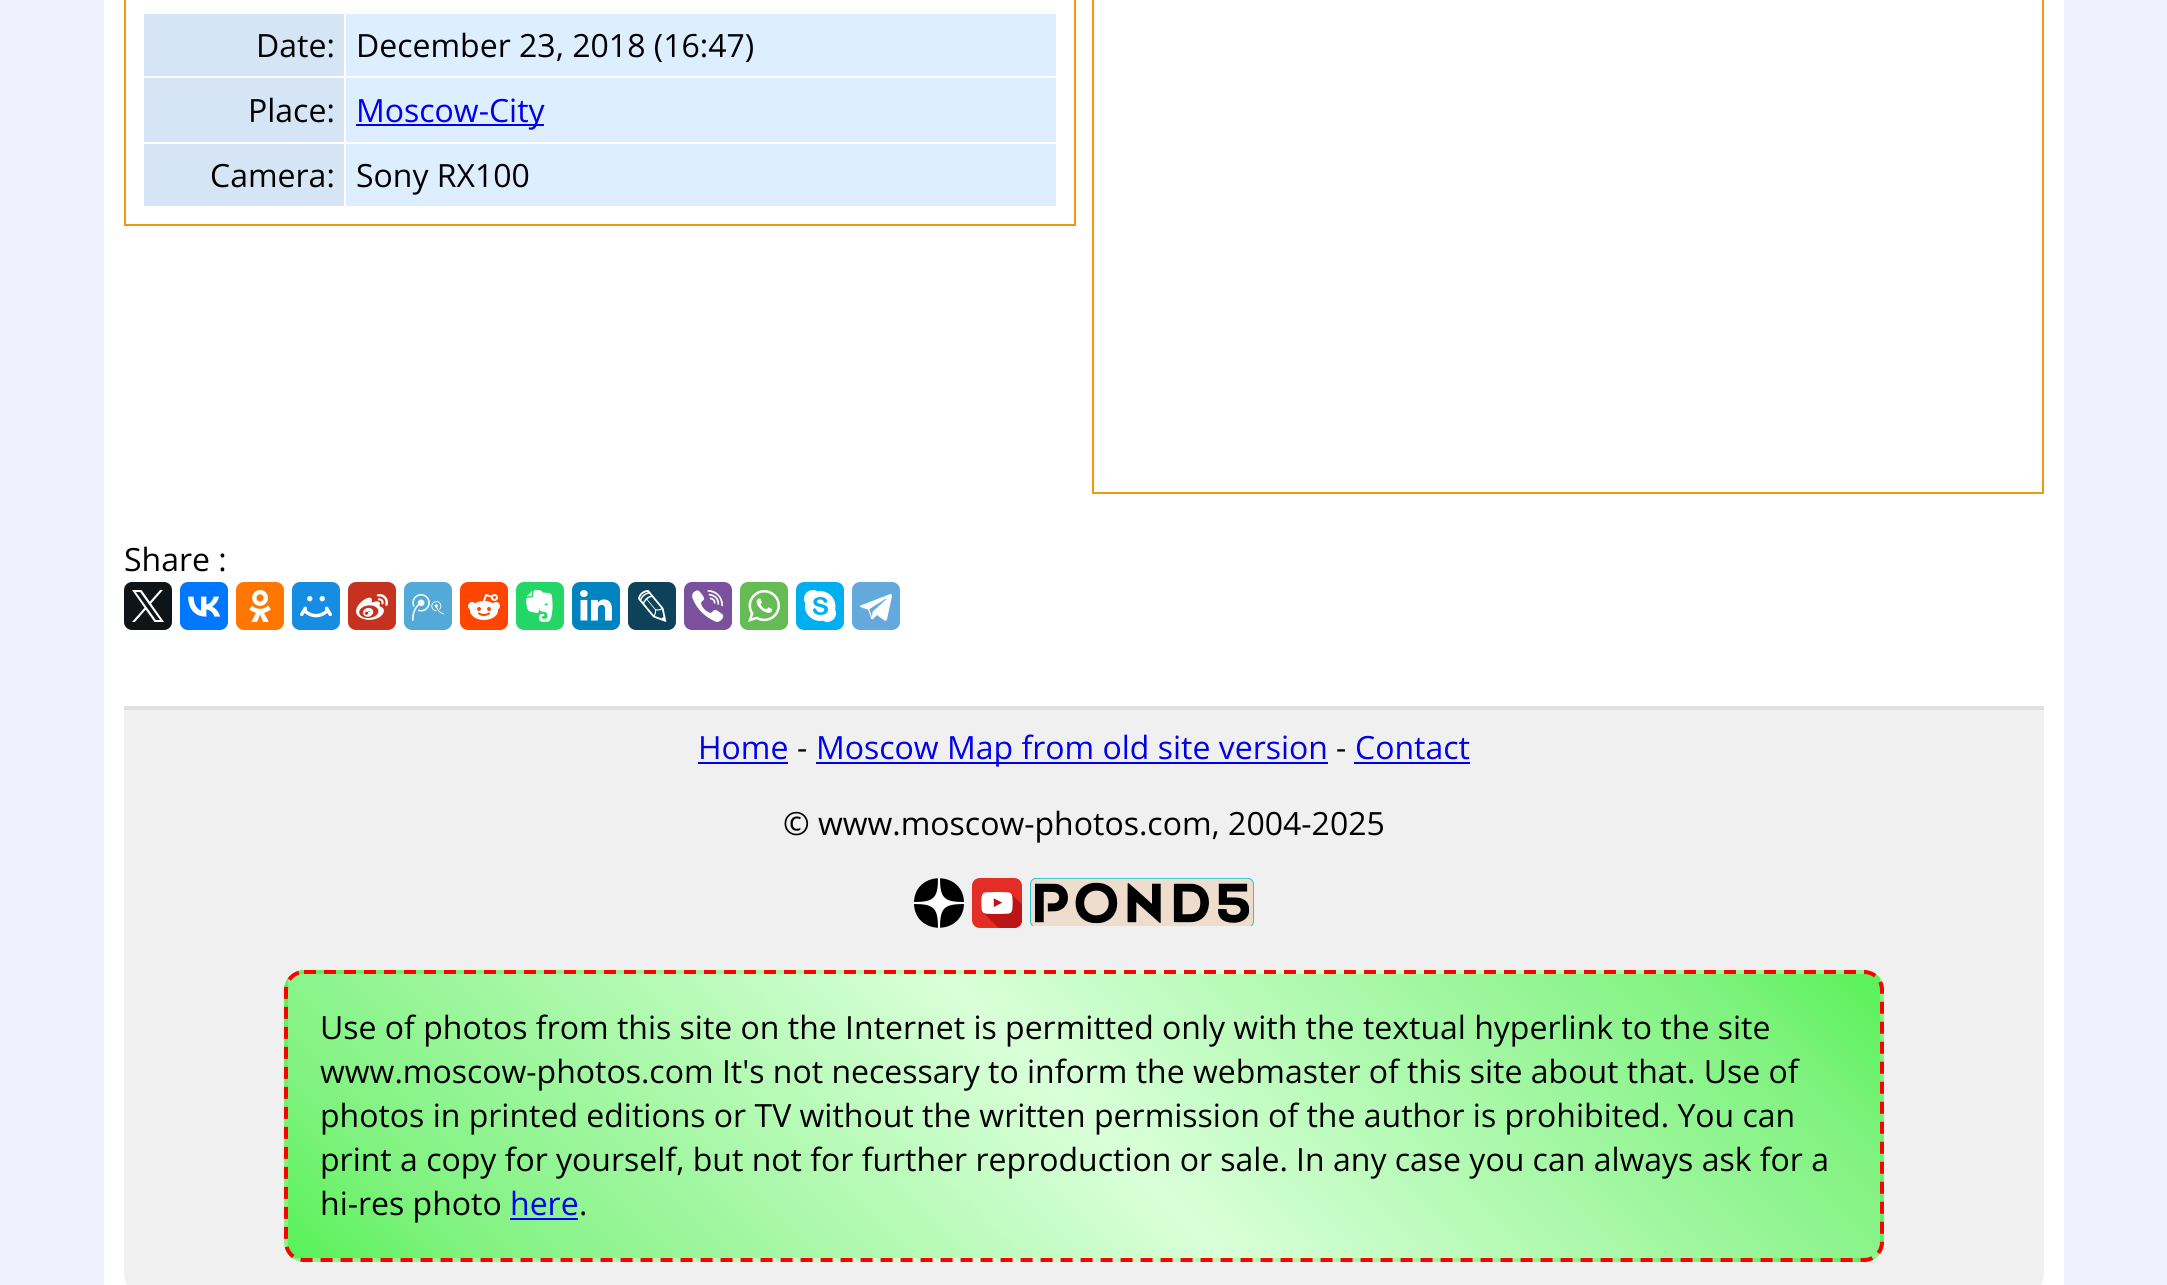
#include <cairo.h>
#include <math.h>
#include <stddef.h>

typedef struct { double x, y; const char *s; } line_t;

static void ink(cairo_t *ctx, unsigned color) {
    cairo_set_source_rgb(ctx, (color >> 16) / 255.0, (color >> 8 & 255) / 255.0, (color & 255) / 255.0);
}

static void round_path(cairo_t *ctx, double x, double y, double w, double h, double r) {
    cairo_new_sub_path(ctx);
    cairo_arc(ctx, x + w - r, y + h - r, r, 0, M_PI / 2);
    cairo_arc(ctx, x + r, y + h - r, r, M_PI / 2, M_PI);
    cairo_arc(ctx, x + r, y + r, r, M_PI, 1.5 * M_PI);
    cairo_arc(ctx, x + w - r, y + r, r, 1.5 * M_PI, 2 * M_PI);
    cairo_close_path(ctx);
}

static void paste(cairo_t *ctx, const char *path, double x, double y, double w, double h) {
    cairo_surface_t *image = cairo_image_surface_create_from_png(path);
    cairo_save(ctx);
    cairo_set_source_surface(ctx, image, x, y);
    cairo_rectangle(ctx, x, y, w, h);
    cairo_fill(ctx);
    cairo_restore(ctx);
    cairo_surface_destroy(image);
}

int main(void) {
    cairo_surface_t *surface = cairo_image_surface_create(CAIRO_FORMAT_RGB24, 2167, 1285);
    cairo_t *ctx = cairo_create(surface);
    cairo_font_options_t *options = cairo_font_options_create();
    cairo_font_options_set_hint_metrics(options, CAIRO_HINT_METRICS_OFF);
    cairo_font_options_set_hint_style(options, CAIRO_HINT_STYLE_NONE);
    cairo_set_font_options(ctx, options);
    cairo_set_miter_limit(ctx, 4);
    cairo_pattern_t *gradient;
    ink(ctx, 0xF0F0FF);
    cairo_paint(ctx);
    ink(ctx, 0xFFFFFF);
    cairo_rectangle(ctx, 104, 0, 1960, 1285);
    cairo_fill(ctx);
    cairo_rectangle(ctx, 125, -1, 950, 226);
    ink(ctx, 0xEE9911);
    cairo_stroke(ctx);
    ink(ctx, 0xD5E5F5);
    cairo_rectangle(ctx, 144, 14, 200, 62);
    cairo_fill(ctx);
    cairo_select_font_face(ctx, "Open Sans", CAIRO_FONT_SLANT_NORMAL, CAIRO_FONT_WEIGHT_NORMAL);
    cairo_set_font_size(ctx, 32);
    ink(ctx, 0x000000);
    cairo_move_to(ctx, 256, 57);
    cairo_show_text(ctx, "Date:");
    ink(ctx, 0xDDEEFF);
    cairo_rectangle(ctx, 346, 14, 710, 62);
    cairo_fill(ctx);
    ink(ctx, 0x000000);
    cairo_move_to(ctx, 356, 57);
    cairo_show_text(ctx, "December 23, 2018 (16:47)");
    ink(ctx, 0xD5E5F5);
    cairo_rectangle(ctx, 144, 78, 200, 64);
    cairo_fill(ctx);
    ink(ctx, 0x000000);
    cairo_move_to(ctx, 248, 122);
    cairo_show_text(ctx, "Place:");
    ink(ctx, 0xDDEEFF);
    cairo_rectangle(ctx, 346, 78, 710, 64);
    cairo_fill(ctx);
    ink(ctx, 0x0000EE);
    cairo_rectangle(ctx, 356, 124, 188, 2);
    cairo_fill(ctx);
    cairo_move_to(ctx, 356, 122);
    cairo_show_text(ctx, "Moscow-City");
    ink(ctx, 0xD5E5F5);
    cairo_rectangle(ctx, 144, 144, 200, 62);
    cairo_fill(ctx);
    ink(ctx, 0x000000);
    cairo_move_to(ctx, 210, 187);
    cairo_show_text(ctx, "Camera:");
    ink(ctx, 0xDDEEFF);
    cairo_rectangle(ctx, 346, 144, 710, 62);
    cairo_fill(ctx);
    ink(ctx, 0x000000);
    cairo_move_to(ctx, 356, 187);
    cairo_show_text(ctx, "Sony RX100");
    cairo_rectangle(ctx, 1093, -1, 950, 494);
    ink(ctx, 0xEE9911);
    cairo_stroke(ctx);
    ink(ctx, 0x000000);
    cairo_move_to(ctx, 124, 571);
    cairo_show_text(ctx, "Share :");
    ink(ctx, 0x0F1419);
    round_path(ctx, 124, 582, 48, 48, 8);
    cairo_fill(ctx);
    paste(ctx, "media/1.png", 132, 590, 32, 32);
    ink(ctx, 0x0077FF);
    round_path(ctx, 180, 582, 48, 48, 8);
    cairo_fill(ctx);
    paste(ctx, "media/2.png", 188, 596, 33, 21);
    ink(ctx, 0xFF7700);
    round_path(ctx, 236, 582, 48, 48, 8);
    cairo_fill(ctx);
    paste(ctx, "media/3.png", 249, 590, 22, 32);
    ink(ctx, 0x168DE2);
    round_path(ctx, 292, 582, 48, 48, 8);
    cairo_fill(ctx);
    paste(ctx, "media/4.png", 300, 596, 32, 22);
    ink(ctx, 0xC53220);
    round_path(ctx, 348, 582, 48, 48, 8);
    cairo_fill(ctx);
    paste(ctx, "media/5.png", 356, 594, 32, 26);
    ink(ctx, 0x53A9D7);
    round_path(ctx, 404, 582, 48, 48, 8);
    cairo_fill(ctx);
    paste(ctx, "media/6.png", 412, 594, 32, 27);
    ink(ctx, 0xFF4500);
    round_path(ctx, 460, 582, 48, 48, 8);
    cairo_fill(ctx);
    paste(ctx, "media/7.png", 468, 594, 32, 26);
    ink(ctx, 0x24D666);
    round_path(ctx, 516, 582, 48, 48, 8);
    cairo_fill(ctx);
    paste(ctx, "media/8.png", 526, 590, 27, 32);
    ink(ctx, 0x0083BE);
    round_path(ctx, 572, 582, 48, 48, 8);
    cairo_fill(ctx);
    paste(ctx, "media/9.png", 580, 590, 32, 31);
    ink(ctx, 0x0D425A);
    round_path(ctx, 628, 582, 48, 48, 8);
    cairo_fill(ctx);
    paste(ctx, "media/10.png", 638, 590, 29, 32);
    ink(ctx, 0x7B519D);
    round_path(ctx, 684, 582, 48, 48, 8);
    cairo_fill(ctx);
    paste(ctx, "media/11.png", 692, 590, 32, 32);
    ink(ctx, 0x65BC54);
    round_path(ctx, 740, 582, 48, 48, 8);
    cairo_fill(ctx);
    paste(ctx, "media/12.png", 748, 590, 32, 32);
    ink(ctx, 0x00AFF0);
    round_path(ctx, 796, 582, 48, 48, 8);
    cairo_fill(ctx);
    paste(ctx, "media/13.png", 804, 590, 32, 32);
    ink(ctx, 0x64A9DC);
    round_path(ctx, 852, 582, 48, 48, 8);
    cairo_fill(ctx);
    paste(ctx, "media/14.png", 860, 594, 32, 27);
    ink(ctx, 0xF0F0F0);
    cairo_new_path(ctx);
    cairo_move_to(ctx, 124, 706);
    cairo_line_to(ctx, 2044, 706);
    cairo_line_to(ctx, 2044, 1274);
    cairo_curve_to(ctx, 2044, 1285, 2035, 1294, 2024, 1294);
    cairo_line_to(ctx, 144, 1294);
    cairo_curve_to(ctx, 133, 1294, 124, 1285, 124, 1274);
    cairo_close_path(ctx);
    cairo_fill(ctx);
    ink(ctx, 0xE0E0E0);
    cairo_rectangle(ctx, 124, 706, 1920, 4);
    cairo_fill(ctx);
    ink(ctx, 0x0000EE);
    cairo_move_to(ctx, 698, 759);
    cairo_show_text(ctx, "Home");
    cairo_rectangle(ctx, 698, 762, 90, 2);
    cairo_fill(ctx);
    ink(ctx, 0x000000);
    cairo_move_to(ctx, 797, 759);
    cairo_show_text(ctx, "-");
    ink(ctx, 0x0000EE);
    cairo_rectangle(ctx, 816, 762, 512, 2);
    cairo_fill(ctx);
    cairo_move_to(ctx, 816, 759);
    cairo_show_text(ctx, "Moscow Map from old site version");
    ink(ctx, 0x000000);
    cairo_move_to(ctx, 1336, 759);
    cairo_show_text(ctx, "-");
    ink(ctx, 0x0000EE);
    cairo_move_to(ctx, 1355, 759);
    cairo_show_text(ctx, "Contact");
    cairo_rectangle(ctx, 1354, 762, 116, 2);
    cairo_fill(ctx);
    ink(ctx, 0x000000);
    cairo_move_to(ctx, 783, 835);
    cairo_show_text(ctx, "© www.moscow-photos.com, 2004-2025");
    cairo_new_path(ctx);
    cairo_move_to(ctx, 914, 903);
    cairo_curve_to(ctx, 914, 870, 964, 870, 964, 903);
    cairo_curve_to(ctx, 964, 936, 914, 936, 914, 903);
    cairo_close_path(ctx);
    cairo_fill(ctx);
    ink(ctx, 0xFFFFFF);
    cairo_set_fill_rule(ctx, CAIRO_FILL_RULE_EVEN_ODD);
    cairo_new_path(ctx);
    cairo_move_to(ctx, 938, 878);
    cairo_curve_to(ctx, 938, 898, 934, 902, 914, 902);
    cairo_line_to(ctx, 914, 904);
    cairo_curve_to(ctx, 934, 904, 938, 908, 938, 928);
    cairo_line_to(ctx, 940, 928);
    cairo_curve_to(ctx, 940, 908, 944, 904, 964, 904);
    cairo_line_to(ctx, 964, 902);
    cairo_curve_to(ctx, 944, 902, 940, 898, 940, 878);
    cairo_close_path(ctx);
    cairo_fill(ctx);
    paste(ctx, "media/15.png", 972, 878, 50, 50);
    paste(ctx, "media/16.png", 1030, 878, 224, 48);
    cairo_save(ctx);
    cairo_set_fill_rule(ctx, CAIRO_FILL_RULE_WINDING);
    round_path(ctx, 284, 970, 1600, 292, 20);
    cairo_clip(ctx);
    gradient = cairo_pattern_create_linear(521, 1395, 1647, 269);
    cairo_pattern_add_color_stop_rgba(gradient, 0, 0.188, 0.949, 0.188, 1);
    cairo_pattern_add_color_stop_rgba(gradient, 0.17, 0.502, 0.949, 0.502, 1);
    cairo_pattern_add_color_stop_rgba(gradient, 0.5, 0.851, 1, 0.851, 1);
    cairo_pattern_add_color_stop_rgba(gradient, 0.83, 0.502, 0.949, 0.502, 1);
    cairo_pattern_add_color_stop_rgba(gradient, 1, 0.188, 0.949, 0.188, 1);
    cairo_set_source(ctx, gradient);
    cairo_pattern_destroy(gradient);
    cairo_rectangle(ctx, 288, 970, 1592, 4);
    cairo_fill(ctx);
    gradient = cairo_pattern_create_linear(-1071, 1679, 55, 553);
    cairo_pattern_add_color_stop_rgba(gradient, 0, 0.188, 0.949, 0.188, 1);
    cairo_pattern_add_color_stop_rgba(gradient, 0.17, 0.502, 0.949, 0.502, 1);
    cairo_pattern_add_color_stop_rgba(gradient, 0.5, 0.851, 1, 0.851, 1);
    cairo_pattern_add_color_stop_rgba(gradient, 0.83, 0.502, 0.949, 0.502, 1);
    cairo_pattern_add_color_stop_rgba(gradient, 1, 0.188, 0.949, 0.188, 1);
    cairo_set_source(ctx, gradient);
    cairo_pattern_destroy(gradient);
    cairo_rectangle(ctx, 284, 974, 4, 284);
    cairo_fill(ctx);
    gradient = cairo_pattern_create_linear(521, 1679, 1647, 553);
    cairo_pattern_add_color_stop_rgba(gradient, 0, 0.188, 0.949, 0.188, 1);
    cairo_pattern_add_color_stop_rgba(gradient, 0.17, 0.502, 0.949, 0.502, 1);
    cairo_pattern_add_color_stop_rgba(gradient, 0.5, 0.851, 1, 0.851, 1);
    cairo_pattern_add_color_stop_rgba(gradient, 0.83, 0.502, 0.949, 0.502, 1);
    cairo_pattern_add_color_stop_rgba(gradient, 1, 0.188, 0.949, 0.188, 1);
    cairo_set_source(ctx, gradient);
    cairo_pattern_destroy(gradient);
    cairo_rectangle(ctx, 288, 974, 1592, 284);
    cairo_fill(ctx);
    gradient = cairo_pattern_create_linear(2113, 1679, 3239, 553);
    cairo_pattern_add_color_stop_rgba(gradient, 0, 0.188, 0.949, 0.188, 1);
    cairo_pattern_add_color_stop_rgba(gradient, 0.17, 0.502, 0.949, 0.502, 1);
    cairo_pattern_add_color_stop_rgba(gradient, 0.5, 0.851, 1, 0.851, 1);
    cairo_pattern_add_color_stop_rgba(gradient, 0.83, 0.502, 0.949, 0.502, 1);
    cairo_pattern_add_color_stop_rgba(gradient, 1, 0.188, 0.949, 0.188, 1);
    cairo_set_source(ctx, gradient);
    cairo_pattern_destroy(gradient);
    cairo_rectangle(ctx, 1880, 974, 4, 284);
    cairo_fill(ctx);
    gradient = cairo_pattern_create_linear(521, 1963, 1647, 837);
    cairo_pattern_add_color_stop_rgba(gradient, 0, 0.188, 0.949, 0.188, 1);
    cairo_pattern_add_color_stop_rgba(gradient, 0.17, 0.502, 0.949, 0.502, 1);
    cairo_pattern_add_color_stop_rgba(gradient, 0.5, 0.851, 1, 0.851, 1);
    cairo_pattern_add_color_stop_rgba(gradient, 0.83, 0.502, 0.949, 0.502, 1);
    cairo_pattern_add_color_stop_rgba(gradient, 1, 0.188, 0.949, 0.188, 1);
    cairo_set_source(ctx, gradient);
    cairo_pattern_destroy(gradient);
    cairo_rectangle(ctx, 288, 1258, 1592, 4);
    cairo_fill(ctx);
    cairo_restore(ctx);
    cairo_new_path(ctx);
    cairo_move_to(ctx, 304, 972);
    cairo_line_to(ctx, 1864, 972);
    cairo_curve_to(ctx, 1874, 972, 1882, 980, 1882, 990);
    cairo_line_to(ctx, 1882, 1242);
    cairo_curve_to(ctx, 1882, 1252, 1874, 1260, 1864, 1260);
    cairo_line_to(ctx, 304, 1260);
    cairo_curve_to(ctx, 294, 1260, 286, 1252, 286, 1242);
    cairo_line_to(ctx, 286, 990);
    cairo_curve_to(ctx, 286, 980, 294, 972, 304, 972);
    cairo_close_path(ctx);
    ink(ctx, 0xFF0000);
    cairo_set_line_width(ctx, 4);
    cairo_set_dash(ctx, (double[]){12, 8}, 2, 0);
    cairo_stroke(ctx);
    ink(ctx, 0x000000);
    {
        static const line_t items[] = {
            {320, 1039, "Use of photos from this site on the Internet is permitted only with the textual hyperlink to the site"},
            {320, 1083, "www.moscow-photos.com It's not necessary to inform the webmaster of this site about that. Use of"},
            {320, 1127, "photos in printed editions or TV without the written permission of the author is prohibited. You can"},
            {320, 1171, "print a copy for yourself, but not for further reproduction or sale. In any case you can always ask for a"},
            {320, 1215, "hi-res photo"},
        };
        for (size_t i = 0; i < sizeof items / sizeof *items; i++) {
            cairo_move_to(ctx, items[i].x, items[i].y);
            cairo_show_text(ctx, items[i].s);
        }
    }
    ink(ctx, 0x0000EE);
    cairo_move_to(ctx, 510, 1215);
    cairo_show_text(ctx, "here");
    cairo_rectangle(ctx, 510, 1218, 68, 2);
    cairo_fill(ctx);
    ink(ctx, 0x000000);
    cairo_move_to(ctx, 579, 1215);
    cairo_show_text(ctx, ".");
    cairo_surface_write_to_png(surface, "image.png");
    cairo_font_options_destroy(options);
    cairo_destroy(ctx);
    cairo_surface_destroy(surface);
    return 0;
}
